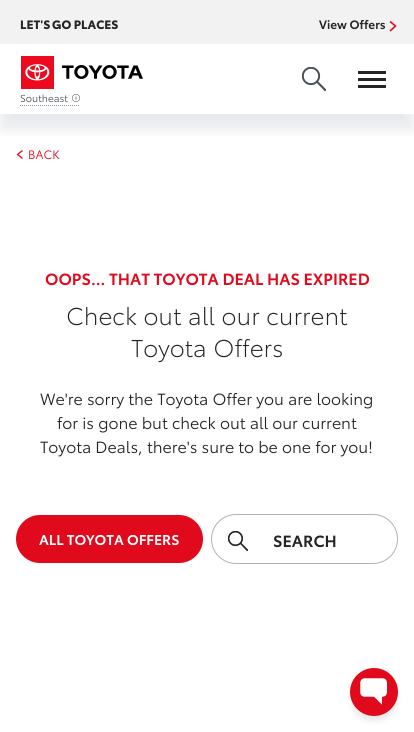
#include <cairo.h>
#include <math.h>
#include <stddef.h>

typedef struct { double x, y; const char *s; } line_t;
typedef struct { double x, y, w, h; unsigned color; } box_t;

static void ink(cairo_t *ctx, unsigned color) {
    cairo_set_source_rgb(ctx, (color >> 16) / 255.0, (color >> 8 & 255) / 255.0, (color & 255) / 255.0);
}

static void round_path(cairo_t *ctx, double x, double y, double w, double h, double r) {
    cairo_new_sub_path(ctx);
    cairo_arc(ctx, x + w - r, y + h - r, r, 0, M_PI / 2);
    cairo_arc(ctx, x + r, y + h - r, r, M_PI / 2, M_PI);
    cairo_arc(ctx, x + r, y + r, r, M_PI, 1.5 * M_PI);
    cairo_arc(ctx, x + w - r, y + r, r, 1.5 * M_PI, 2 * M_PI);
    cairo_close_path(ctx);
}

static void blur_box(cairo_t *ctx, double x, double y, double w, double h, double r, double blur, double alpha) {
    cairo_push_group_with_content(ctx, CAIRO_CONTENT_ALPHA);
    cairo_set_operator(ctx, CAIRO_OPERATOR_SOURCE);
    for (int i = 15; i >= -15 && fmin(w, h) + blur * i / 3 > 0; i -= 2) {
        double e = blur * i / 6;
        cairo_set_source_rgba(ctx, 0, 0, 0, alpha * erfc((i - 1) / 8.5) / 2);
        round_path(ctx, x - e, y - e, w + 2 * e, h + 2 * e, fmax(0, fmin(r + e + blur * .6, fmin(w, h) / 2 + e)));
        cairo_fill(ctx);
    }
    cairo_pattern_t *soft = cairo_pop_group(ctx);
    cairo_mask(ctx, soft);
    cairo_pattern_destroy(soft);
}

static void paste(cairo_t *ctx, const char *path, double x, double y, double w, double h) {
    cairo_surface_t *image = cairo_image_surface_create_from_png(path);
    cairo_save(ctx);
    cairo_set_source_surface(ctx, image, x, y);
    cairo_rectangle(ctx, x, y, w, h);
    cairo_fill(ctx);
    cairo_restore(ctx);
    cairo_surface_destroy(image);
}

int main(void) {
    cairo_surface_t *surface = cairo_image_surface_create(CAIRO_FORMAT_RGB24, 414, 732);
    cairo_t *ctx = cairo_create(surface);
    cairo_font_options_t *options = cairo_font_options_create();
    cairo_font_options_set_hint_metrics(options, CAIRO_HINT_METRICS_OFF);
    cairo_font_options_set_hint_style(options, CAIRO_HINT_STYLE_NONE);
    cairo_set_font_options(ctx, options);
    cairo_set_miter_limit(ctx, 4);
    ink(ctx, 0xFFFFFF);
    cairo_paint(ctx);
    ink(ctx, 0xF2F2F2);
    cairo_rectangle(ctx, 0, 0, 414, 44);
    cairo_fill(ctx);
    cairo_select_font_face(ctx, "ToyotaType", CAIRO_FONT_SLANT_NORMAL, CAIRO_FONT_WEIGHT_BOLD);
    cairo_set_font_size(ctx, 12);
    ink(ctx, 0x242424);
    cairo_move_to(ctx, 20, 29);
    cairo_show_text(ctx, "LET'S");
    cairo_move_to(ctx, 52, 29);
    cairo_show_text(ctx, "GO PLACES");
    cairo_select_font_face(ctx, "Toyota Type SemiBold", CAIRO_FONT_SLANT_NORMAL, CAIRO_FONT_WEIGHT_NORMAL);
    cairo_move_to(ctx, 319, 29);
    cairo_show_text(ctx, "View Offers");
    cairo_new_path(ctx);
    cairo_move_to(ctx, 390, 21.5);
    cairo_line_to(ctx, 395.5, 26);
    cairo_line_to(ctx, 390, 31);
    ink(ctx, 0xE10A1D);
    cairo_set_line_width(ctx, 1.6);
    cairo_set_line_join(ctx, CAIRO_LINE_JOIN_ROUND);
    cairo_stroke(ctx);
    cairo_new_path(ctx);
    cairo_move_to(ctx, 22.5, 158.5);
    cairo_line_to(ctx, 17.5, 154.5);
    cairo_line_to(ctx, 22.5, 150.5);
    cairo_set_line_width(ctx, 1.3);
    cairo_stroke(ctx);
    cairo_save(ctx);
    cairo_rectangle(ctx, 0, 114, 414, 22);
    cairo_clip(ctx);
    ink(ctx, 0x0A1646);
    blur_box(ctx, 1, 61, 412, 68, 0, 8, 0.1);
    cairo_restore(ctx);
    paste(ctx, "media/1.png", 302, 67, 24, 24);
    {
        static const box_t items[] = {
            {358, 71, 28, 3, 0x252525},
            {358, 78, 28, 3, 0x252525},
            {358, 85, 28, 3, 0x252525},
        };
        for (size_t i = 0; i < sizeof items / sizeof *items; i++) {
            ink(ctx, items[i].color);
            cairo_rectangle(ctx, items[i].x, items[i].y, items[i].w, items[i].h);
            cairo_fill(ctx);
        }
    }
    paste(ctx, "media/2.png", 21, 56, 122, 33);
    cairo_new_path(ctx);
    cairo_move_to(ctx, 20, 105.5);
    cairo_line_to(ctx, 80, 105.5);
    ink(ctx, 0x858E96);
    cairo_set_line_width(ctx, 1);
    cairo_set_line_join(ctx, CAIRO_LINE_JOIN_MITER);
    cairo_set_dash(ctx, (double[]){1, 1}, 2, 0);
    cairo_stroke(ctx);
    cairo_select_font_face(ctx, "Toyota Type", CAIRO_FONT_SLANT_NORMAL, CAIRO_FONT_WEIGHT_NORMAL);
    cairo_set_font_size(ctx, 10);
    ink(ctx, 0x495057);
    cairo_move_to(ctx, 20, 102);
    cairo_show_text(ctx, "Southeast");
    paste(ctx, "media/3.png", 72, 94, 8, 8);
    cairo_set_font_size(ctx, 12);
    ink(ctx, 0xE10A1D);
    cairo_move_to(ctx, 28, 159);
    cairo_show_text(ctx, "BACK");
    cairo_select_font_face(ctx, "Toyota Type SemiBold", CAIRO_FONT_SLANT_NORMAL, CAIRO_FONT_WEIGHT_NORMAL);
    cairo_set_font_size(ctx, 16);
    cairo_move_to(ctx, 45, 285);
    cairo_show_text(ctx, "OOPS... THAT TOYOTA DEAL HAS EXPIRED");
    cairo_select_font_face(ctx, "Toyota Type Light", CAIRO_FONT_SLANT_NORMAL, CAIRO_FONT_WEIGHT_NORMAL);
    cairo_set_font_size(ctx, 24);
    ink(ctx, 0x242424);
    cairo_move_to(ctx, 66, 325);
    cairo_show_text(ctx, "Check out all our current");
    cairo_move_to(ctx, 131, 357);
    cairo_show_text(ctx, "Toyota Offers");
    cairo_select_font_face(ctx, "Toyota Type", CAIRO_FONT_SLANT_NORMAL, CAIRO_FONT_WEIGHT_NORMAL);
    cairo_set_font_size(ctx, 16);
    {
        static const line_t items[] = {
            {40, 405, "We're sorry the Toyota Offer you are looking"},
            {57, 429, "for is gone but check out all our current"},
            {40, 453, "Toyota Deals, there's sure to be one for you!"},
        };
        for (size_t i = 0; i < sizeof items / sizeof *items; i++) {
            cairo_move_to(ctx, items[i].x, items[i].y);
            cairo_show_text(ctx, items[i].s);
        }
    }
    cairo_save(ctx);
    round_path(ctx, 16, 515, 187, 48, 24);
    cairo_clip(ctx);
    ink(ctx, 0x0A1646);
    blur_box(ctx, 17, 519, 185, 46, 23, 1.5, 0.1);
    cairo_restore(ctx);
    ink(ctx, 0xE10A1D);
    round_path(ctx, 16, 515, 187, 48, 24);
    cairo_fill(ctx);
    cairo_select_font_face(ctx, "Toyota Type SemiBold", CAIRO_FONT_SLANT_NORMAL, CAIRO_FONT_WEIGHT_NORMAL);
    cairo_set_font_size(ctx, 14);
    ink(ctx, 0xFFFFFF);
    cairo_move_to(ctx, 39, 545);
    cairo_show_text(ctx, "ALL TOYOTA OFFERS");
    round_path(ctx, 211.5, 514.5, 186, 49, 24.5);
    ink(ctx, 0xB2B2B2);
    cairo_set_dash(ctx, NULL, 0, 0);
    cairo_stroke(ctx);
    paste(ctx, "media/4.png", 228, 531, 20, 20);
    cairo_set_font_size(ctx, 16);
    ink(ctx, 0x242424);
    cairo_move_to(ctx, 273, 547);
    cairo_show_text(ctx, "SEARCH");
    ink(ctx, 0x0A1646);
    blur_box(ctx, 351, 675, 46, 46, 23, 3, 0.1);
    ink(ctx, 0xE10A1D);
    cairo_arc(ctx, 374, 692, 24, 0, 2 * M_PI);
    cairo_fill(ctx);
    paste(ctx, "media/5.png", 360, 678, 27, 27);
    cairo_surface_write_to_png(surface, "image.png");
    cairo_font_options_destroy(options);
    cairo_destroy(ctx);
    cairo_surface_destroy(surface);
    return 0;
}
